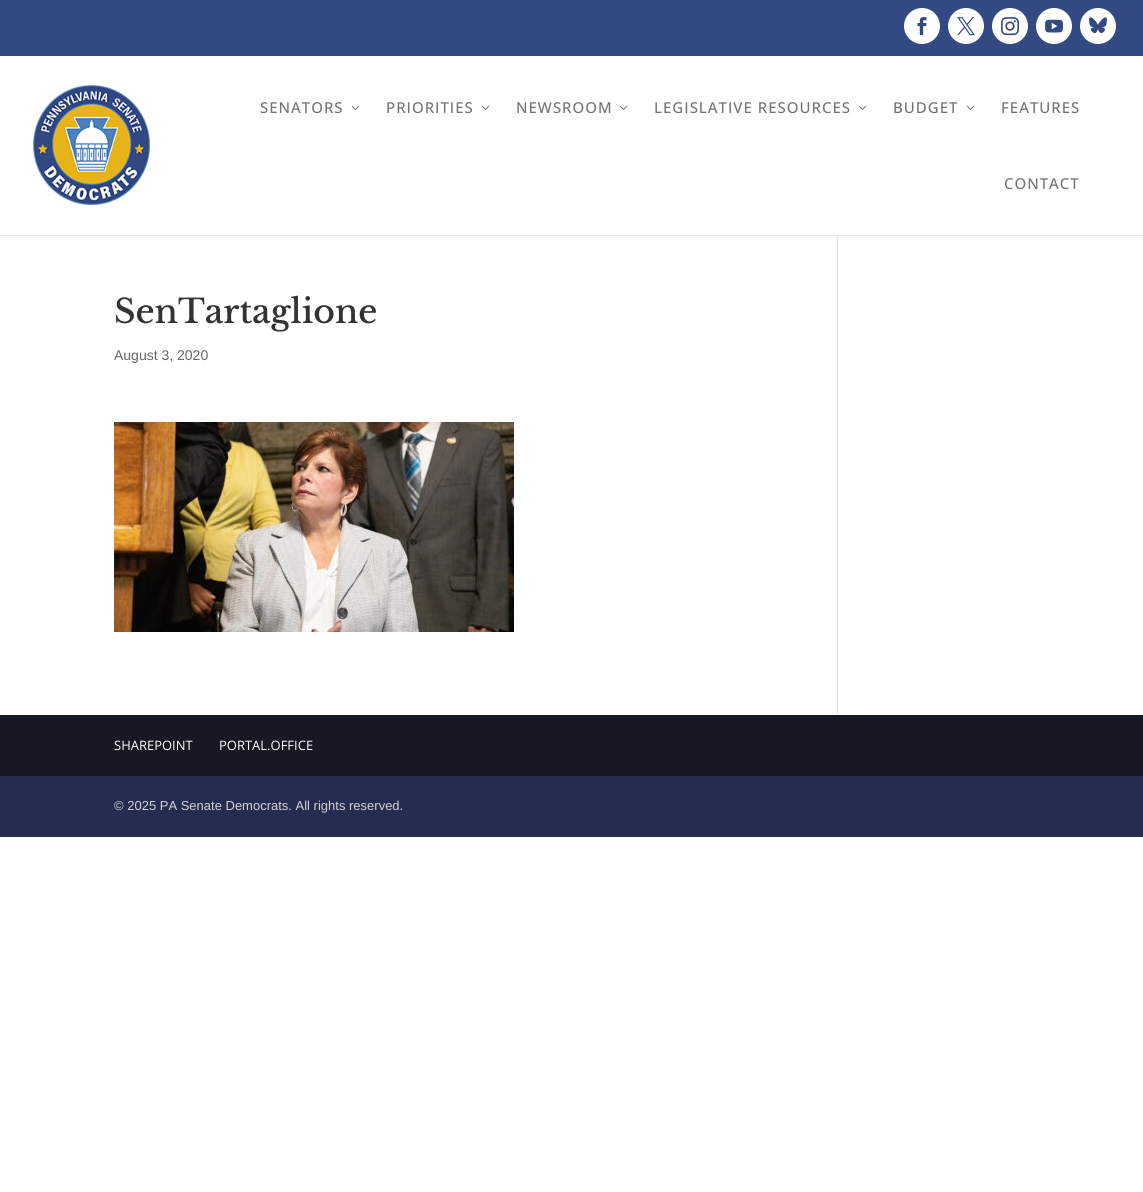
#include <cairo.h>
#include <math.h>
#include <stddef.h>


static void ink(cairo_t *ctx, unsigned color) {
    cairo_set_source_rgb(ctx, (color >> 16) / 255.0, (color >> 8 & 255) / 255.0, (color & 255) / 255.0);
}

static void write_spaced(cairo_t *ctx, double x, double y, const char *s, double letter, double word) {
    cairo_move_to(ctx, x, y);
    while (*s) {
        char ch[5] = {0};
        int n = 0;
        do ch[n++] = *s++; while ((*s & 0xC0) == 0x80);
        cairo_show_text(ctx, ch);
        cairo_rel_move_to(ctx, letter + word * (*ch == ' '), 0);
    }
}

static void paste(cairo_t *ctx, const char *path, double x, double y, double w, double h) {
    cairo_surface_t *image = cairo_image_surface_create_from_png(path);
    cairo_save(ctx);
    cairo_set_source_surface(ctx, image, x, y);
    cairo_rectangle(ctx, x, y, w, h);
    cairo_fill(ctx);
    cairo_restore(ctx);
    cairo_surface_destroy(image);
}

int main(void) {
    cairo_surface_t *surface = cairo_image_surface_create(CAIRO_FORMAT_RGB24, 1143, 1192);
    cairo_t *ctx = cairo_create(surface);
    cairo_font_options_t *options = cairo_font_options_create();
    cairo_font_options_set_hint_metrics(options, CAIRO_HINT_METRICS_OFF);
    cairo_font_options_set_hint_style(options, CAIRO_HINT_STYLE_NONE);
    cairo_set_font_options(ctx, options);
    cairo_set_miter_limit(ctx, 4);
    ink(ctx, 0xFFFFFF);
    cairo_paint(ctx);
    ink(ctx, 0x334981);
    cairo_rectangle(ctx, 0, 0, 1143, 56);
    cairo_fill(ctx);
    ink(ctx, 0xFFFFFF);
    cairo_arc(ctx, 922, 26, 18, 0, 2 * M_PI);
    cairo_fill(ctx);
    paste(ctx, "media/1.png", 917, 17, 10, 19);
    cairo_arc(ctx, 966, 26, 18, 0, 2 * M_PI);
    cairo_fill(ctx);
    paste(ctx, "media/2.png", 957, 17, 18, 19);
    cairo_arc(ctx, 1010, 26, 18, 0, 2 * M_PI);
    cairo_fill(ctx);
    paste(ctx, "media/3.png", 1001, 17, 18, 19);
    cairo_arc(ctx, 1054, 26, 18, 0, 2 * M_PI);
    cairo_fill(ctx);
    paste(ctx, "media/4.png", 1045, 19, 18, 14);
    cairo_arc(ctx, 1098, 26, 18, 0, 2 * M_PI);
    cairo_fill(ctx);
    paste(ctx, "media/5.png", 1089, 17, 18, 17);
    ink(ctx, 0xE5E5E5);
    cairo_rectangle(ctx, 0, 235, 1143, 1);
    cairo_fill(ctx);
    paste(ctx, "media/6.png", 33, 85, 117, 120);
    cairo_select_font_face(ctx, "Open Sans Medium", CAIRO_FONT_SLANT_NORMAL, CAIRO_FONT_WEIGHT_NORMAL);
    cairo_set_font_size(ctx, 15);
    ink(ctx, 0x737373);
    write_spaced(ctx, 260, 113, "SENATORS", 1, 0);
    paste(ctx, "media/7.png", 351, 105, 9, 5);
    write_spaced(ctx, 386, 113, "PRIORITIES", 1, 0);
    paste(ctx, "media/7.png", 481, 105, 9, 5);
    write_spaced(ctx, 516, 113, "NEWSROOM", 1, 0);
    paste(ctx, "media/7.png", 619, 105, 9, 5);
    write_spaced(ctx, 654, 113, "LEGISLATIVE RESOURCES", 1, 0);
    paste(ctx, "media/7.png", 858, 105, 9, 5);
    write_spaced(ctx, 893, 113, "BUDGET", 1, 0);
    paste(ctx, "media/7.png", 966, 105, 9, 5);
    write_spaced(ctx, 1001, 113, "FEATURES", 1, 0);
    write_spaced(ctx, 1004, 189, "CONTACT", 1, 0);
    cairo_select_font_face(ctx, "Libre Baskerville Medium", CAIRO_FONT_SLANT_NORMAL, CAIRO_FONT_WEIGHT_NORMAL);
    cairo_set_font_size(ctx, 33);
    ink(ctx, 0x333333);
    cairo_move_to(ctx, 114, 323);
    cairo_show_text(ctx, "SenTartaglione");
    cairo_select_font_face(ctx, "Liberation Sans", CAIRO_FONT_SLANT_NORMAL, CAIRO_FONT_WEIGHT_NORMAL);
    cairo_set_font_size(ctx, 14);
    ink(ctx, 0x666666);
    cairo_move_to(ctx, 114, 360);
    cairo_show_text(ctx, "August 3, 2020");
    paste(ctx, "media/8.png", 114, 422, 400, 210);
    ink(ctx, 0xE2E2E2);
    cairo_rectangle(ctx, 837, 236, 1, 479);
    cairo_fill(ctx);
    ink(ctx, 0x161824);
    cairo_rectangle(ctx, 0, 715, 1143, 61);
    cairo_fill(ctx);
    cairo_select_font_face(ctx, "Open Sans", CAIRO_FONT_SLANT_NORMAL, CAIRO_FONT_WEIGHT_NORMAL);
    cairo_set_font_size(ctx, 13);
    ink(ctx, 0xFFFFFF);
    cairo_move_to(ctx, 114, 750);
    cairo_show_text(ctx, "SHAREPOINT");
    cairo_move_to(ctx, 219, 750);
    cairo_show_text(ctx, "PORTAL.OFFICE");
    ink(ctx, 0x252C52);
    cairo_rectangle(ctx, 0, 776, 1143, 61);
    cairo_fill(ctx);
    cairo_select_font_face(ctx, "Liberation Sans", CAIRO_FONT_SLANT_NORMAL, CAIRO_FONT_WEIGHT_NORMAL);
    ink(ctx, 0xD3D3D3);
    cairo_move_to(ctx, 114, 810);
    cairo_show_text(ctx, "© 2025 PA Senate Democrats. All rights reserved.");
    cairo_surface_write_to_png(surface, "image.png");
    cairo_font_options_destroy(options);
    cairo_destroy(ctx);
    cairo_surface_destroy(surface);
    return 0;
}
